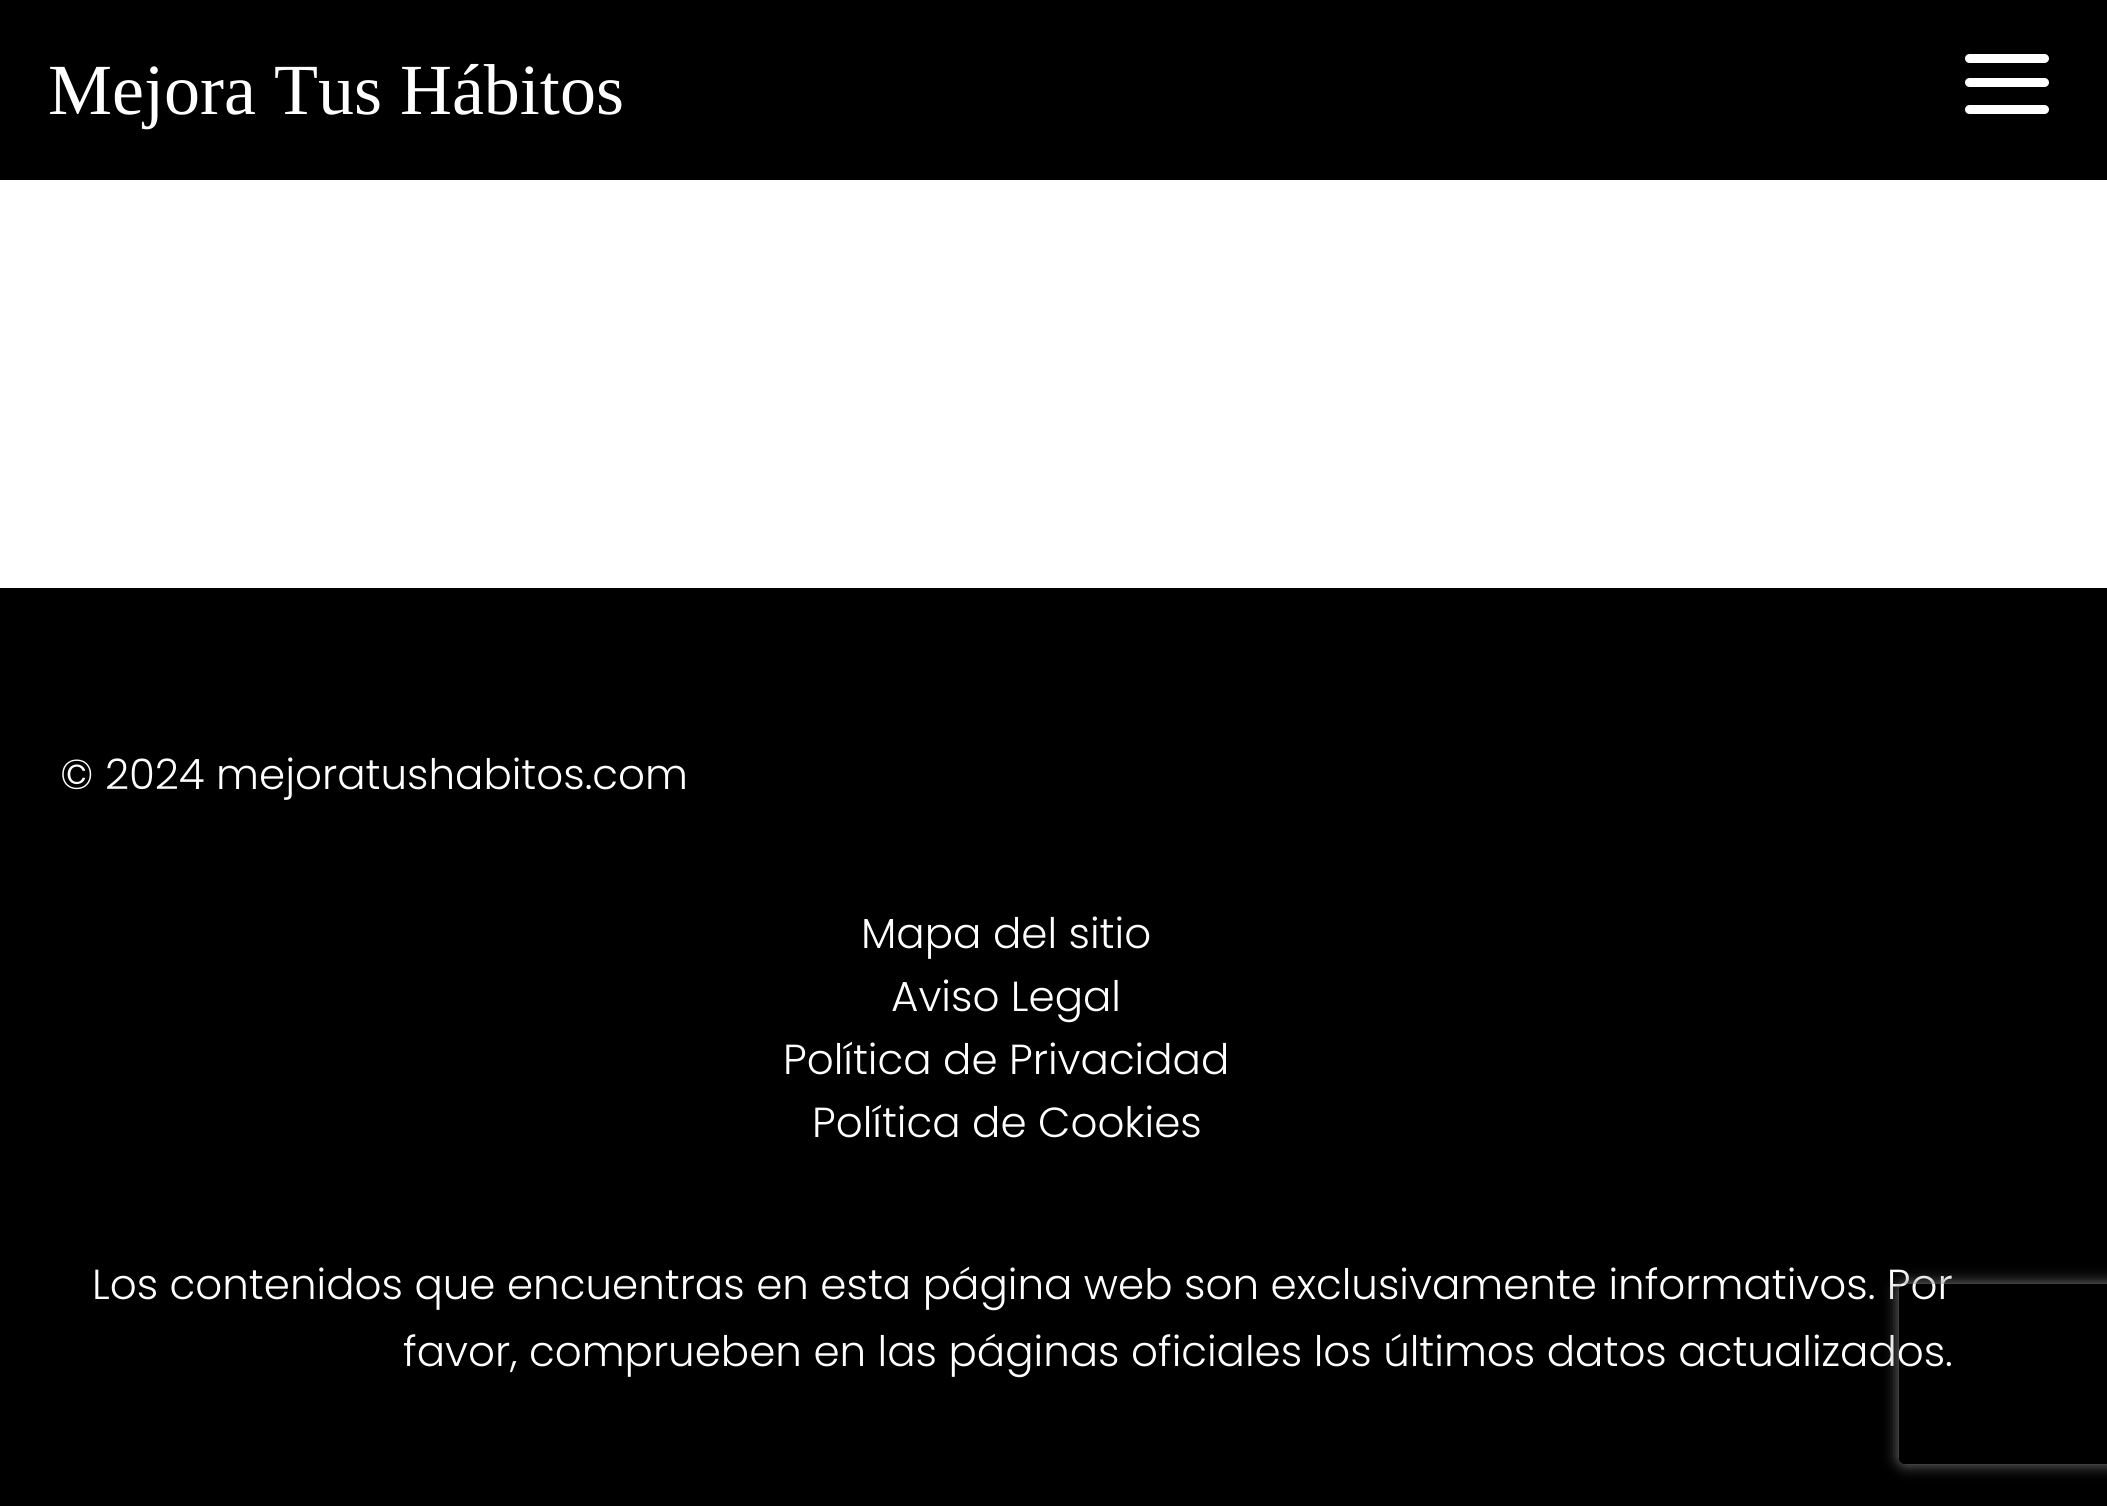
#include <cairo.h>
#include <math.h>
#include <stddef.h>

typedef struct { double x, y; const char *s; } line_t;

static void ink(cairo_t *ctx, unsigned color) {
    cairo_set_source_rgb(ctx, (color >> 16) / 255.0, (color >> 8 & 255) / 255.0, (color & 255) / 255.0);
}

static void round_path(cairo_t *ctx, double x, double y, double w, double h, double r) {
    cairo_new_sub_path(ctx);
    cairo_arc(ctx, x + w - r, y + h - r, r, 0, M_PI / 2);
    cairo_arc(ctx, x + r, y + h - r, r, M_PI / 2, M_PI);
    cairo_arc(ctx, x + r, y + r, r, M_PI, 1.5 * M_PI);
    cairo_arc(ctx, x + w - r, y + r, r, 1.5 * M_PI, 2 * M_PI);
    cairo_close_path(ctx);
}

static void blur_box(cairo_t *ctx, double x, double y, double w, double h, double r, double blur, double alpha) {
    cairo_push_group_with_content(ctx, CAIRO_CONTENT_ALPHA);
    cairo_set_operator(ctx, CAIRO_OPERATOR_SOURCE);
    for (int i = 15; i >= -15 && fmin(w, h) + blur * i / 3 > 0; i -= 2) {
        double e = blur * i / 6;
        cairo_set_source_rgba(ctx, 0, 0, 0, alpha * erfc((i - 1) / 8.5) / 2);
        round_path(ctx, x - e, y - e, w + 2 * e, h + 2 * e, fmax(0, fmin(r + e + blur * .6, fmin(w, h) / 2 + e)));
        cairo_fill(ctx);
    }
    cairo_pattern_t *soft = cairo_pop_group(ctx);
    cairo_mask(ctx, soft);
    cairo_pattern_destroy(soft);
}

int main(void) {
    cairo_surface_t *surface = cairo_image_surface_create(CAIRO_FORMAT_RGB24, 2107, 1506);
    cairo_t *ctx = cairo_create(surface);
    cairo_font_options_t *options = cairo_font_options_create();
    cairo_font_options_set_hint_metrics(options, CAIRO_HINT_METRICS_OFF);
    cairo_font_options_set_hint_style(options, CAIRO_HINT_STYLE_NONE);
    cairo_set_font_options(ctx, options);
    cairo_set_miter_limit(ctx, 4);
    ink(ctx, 0xFFFFFF);
    cairo_paint(ctx);
    ink(ctx, 0x000000);
    cairo_rectangle(ctx, 0, 0, 2107, 180);
    cairo_fill(ctx);
    cairo_select_font_face(ctx, "Liberation Serif", CAIRO_FONT_SLANT_NORMAL, CAIRO_FONT_WEIGHT_NORMAL);
    cairo_set_font_size(ctx, 72);
    ink(ctx, 0xFFFFFF);
    cairo_move_to(ctx, 48, 114);
    cairo_show_text(ctx, "Mejora Tus Hábitos");
    round_path(ctx, 1965, 54, 84, 9, 4.5);
    cairo_fill(ctx);
    round_path(ctx, 1965, 78, 84, 9, 4.5);
    cairo_fill(ctx);
    round_path(ctx, 1965, 105, 84, 9, 4.5);
    cairo_fill(ctx);
    ink(ctx, 0x000000);
    cairo_rectangle(ctx, 0, 588, 2107, 918);
    cairo_fill(ctx);
    cairo_select_font_face(ctx, "Poppins Light", CAIRO_FONT_SLANT_NORMAL, CAIRO_FONT_WEIGHT_NORMAL);
    cairo_set_font_size(ctx, 42);
    ink(ctx, 0xFFFFFF);
    {
        static const line_t items[] = {
            {60, 789, "© 2024 mejoratushabitos.com"},
            {861, 948, "Mapa del sitio"},
            {891, 1011, "Aviso Legal"},
            {783, 1074, "Política de Privacidad"},
            {812, 1137, "Política de Cookies"},
            {92, 1299, "Los contenidos que encuentras en esta página web son exclusivamente informativos. Por"},
            {403, 1366, "favor, comprueben en las páginas oficiales los últimos datos actualizados."},
        };
        for (size_t i = 0; i < sizeof items / sizeof *items; i++) {
            cairo_move_to(ctx, items[i].x, items[i].y);
            cairo_show_text(ctx, items[i].s);
        }
    }
    cairo_save(ctx);
    cairo_set_fill_rule(ctx, CAIRO_FILL_RULE_EVEN_ODD);
    cairo_new_path(ctx);
    cairo_move_to(ctx, 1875, 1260);
    cairo_line_to(ctx, 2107, 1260);
    cairo_line_to(ctx, 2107, 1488);
    cairo_line_to(ctx, 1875, 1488);
    cairo_close_path(ctx);
    cairo_move_to(ctx, 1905, 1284);
    cairo_line_to(ctx, 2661, 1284);
    cairo_curve_to(ctx, 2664.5, 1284, 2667, 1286.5, 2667, 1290);
    cairo_line_to(ctx, 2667, 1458);
    cairo_curve_to(ctx, 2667, 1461.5, 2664.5, 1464, 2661, 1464);
    cairo_line_to(ctx, 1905, 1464);
    cairo_curve_to(ctx, 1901.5, 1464, 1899, 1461.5, 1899, 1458);
    cairo_line_to(ctx, 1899, 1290);
    cairo_curve_to(ctx, 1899, 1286.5, 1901.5, 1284, 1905, 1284);
    cairo_close_path(ctx);
    cairo_clip(ctx);
    ink(ctx, 0x808080);
    blur_box(ctx, 1899, 1284, 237, 180, 6, 7.5, 1);
    cairo_restore(ctx);
    cairo_surface_write_to_png(surface, "image.png");
    cairo_font_options_destroy(options);
    cairo_destroy(ctx);
    cairo_surface_destroy(surface);
    return 0;
}
